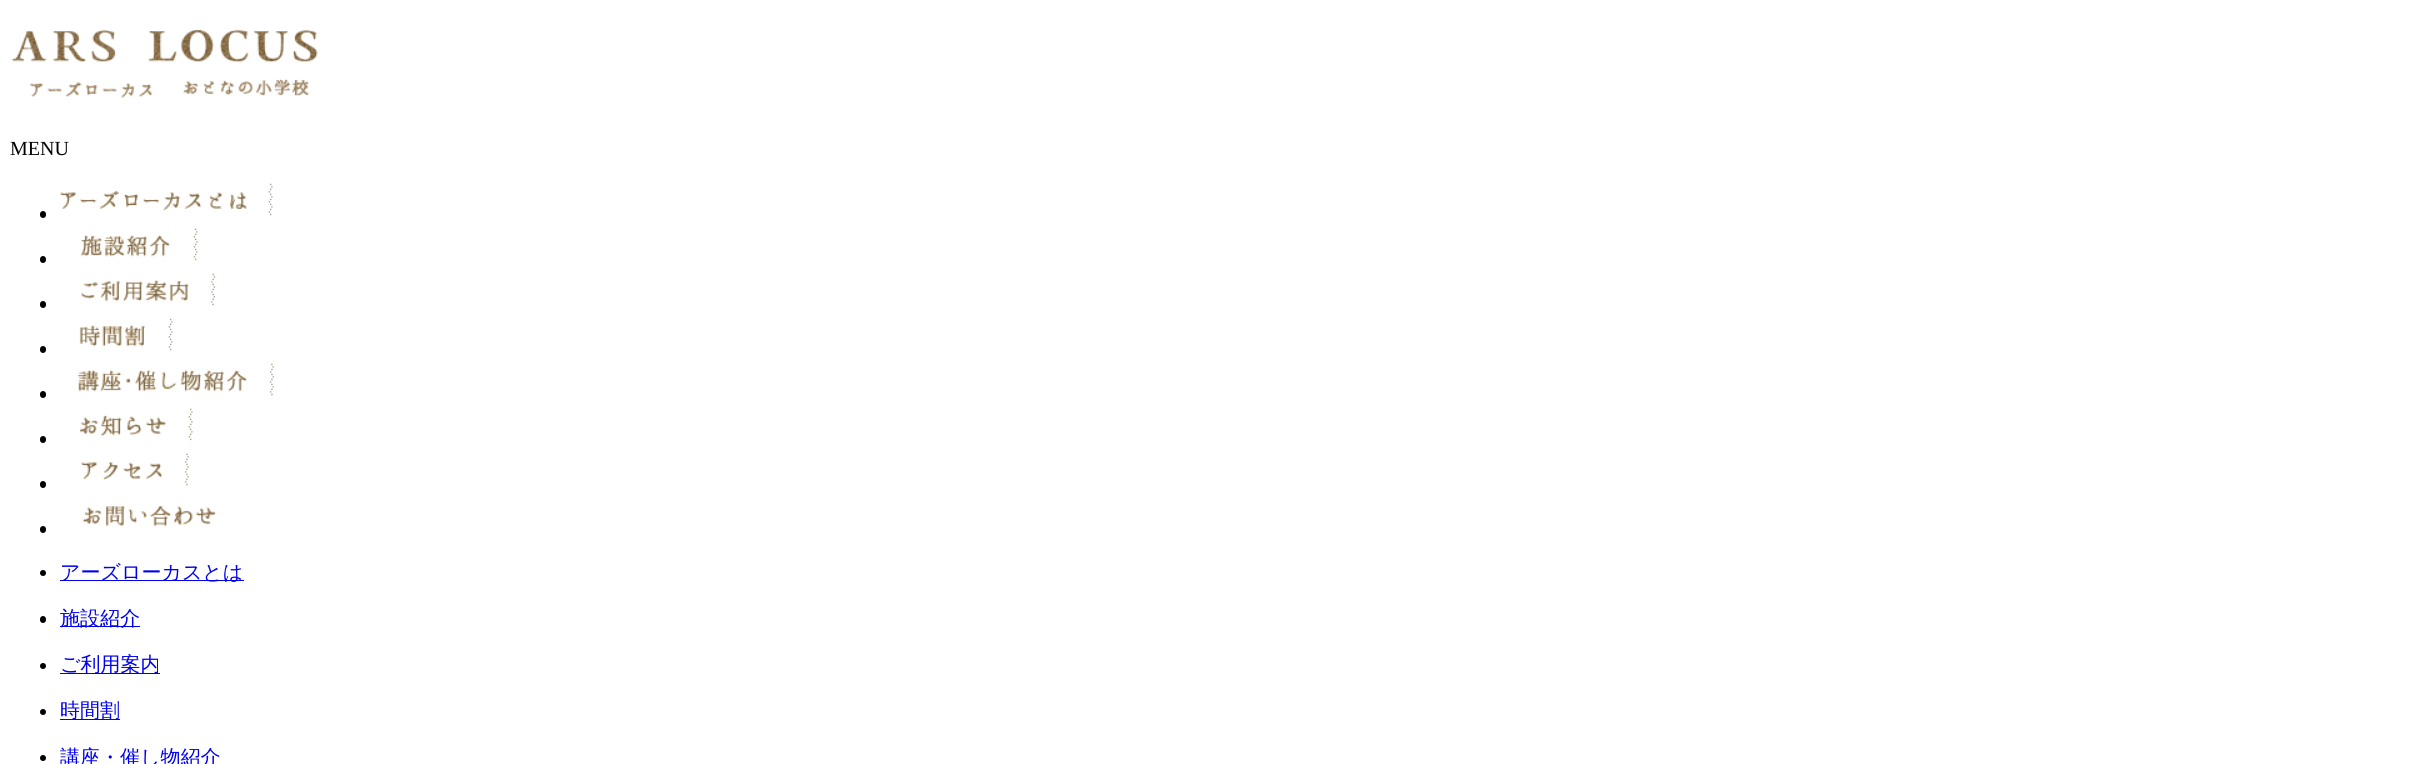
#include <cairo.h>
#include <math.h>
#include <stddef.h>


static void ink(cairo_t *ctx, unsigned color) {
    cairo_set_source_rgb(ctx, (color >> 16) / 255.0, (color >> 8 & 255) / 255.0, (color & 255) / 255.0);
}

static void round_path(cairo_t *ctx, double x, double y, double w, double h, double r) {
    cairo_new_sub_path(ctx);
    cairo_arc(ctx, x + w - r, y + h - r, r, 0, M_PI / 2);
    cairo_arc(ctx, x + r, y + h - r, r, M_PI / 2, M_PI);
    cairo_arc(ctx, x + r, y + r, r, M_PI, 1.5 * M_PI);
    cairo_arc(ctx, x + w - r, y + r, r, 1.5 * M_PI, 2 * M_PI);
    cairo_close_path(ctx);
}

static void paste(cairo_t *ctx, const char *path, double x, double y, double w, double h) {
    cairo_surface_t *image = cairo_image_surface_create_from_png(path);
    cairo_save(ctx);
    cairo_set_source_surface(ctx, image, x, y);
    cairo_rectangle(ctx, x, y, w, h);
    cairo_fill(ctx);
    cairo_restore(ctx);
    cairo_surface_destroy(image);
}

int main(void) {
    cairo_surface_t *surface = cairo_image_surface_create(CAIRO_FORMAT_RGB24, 2418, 764);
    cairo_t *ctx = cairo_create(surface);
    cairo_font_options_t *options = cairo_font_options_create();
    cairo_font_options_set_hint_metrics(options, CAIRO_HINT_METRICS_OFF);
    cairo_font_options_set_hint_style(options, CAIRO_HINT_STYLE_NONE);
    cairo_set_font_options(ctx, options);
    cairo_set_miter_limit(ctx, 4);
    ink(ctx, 0xFFFFFF);
    cairo_paint(ctx);
    paste(ctx, "media/1.png", 12, 29, 306, 69);
    cairo_select_font_face(ctx, "Liberation Serif", CAIRO_FONT_SLANT_NORMAL, CAIRO_FONT_WEIGHT_NORMAL);
    cairo_set_font_size(ctx, 20);
    ink(ctx, 0x000000);
    cairo_move_to(ctx, 10, 155);
    cairo_show_text(ctx, "MENU");
    round_path(ctx, 40, 211, 6, 7, 3);
    cairo_fill(ctx);
    paste(ctx, "media/2.png", 60, 183, 213, 33);
    round_path(ctx, 40, 256, 6, 7, 3);
    cairo_fill(ctx);
    paste(ctx, "media/3.png", 81, 228, 117, 33);
    round_path(ctx, 40, 301, 6, 7, 3);
    cairo_fill(ctx);
    paste(ctx, "media/4.png", 81, 273, 134, 33);
    round_path(ctx, 40, 346, 6, 7, 3);
    cairo_fill(ctx);
    paste(ctx, "media/5.png", 79, 318, 94, 33);
    round_path(ctx, 40, 391, 6, 7, 3);
    cairo_fill(ctx);
    paste(ctx, "media/6.png", 77, 363, 197, 33);
    round_path(ctx, 40, 436, 6, 7, 3);
    cairo_fill(ctx);
    paste(ctx, "media/7.png", 79, 408, 114, 33);
    round_path(ctx, 40, 481, 6, 7, 3);
    cairo_fill(ctx);
    paste(ctx, "media/8.png", 81, 453, 108, 33);
    paste(ctx, "media/9.png", 82, 506, 134, 21);
    round_path(ctx, 40, 526, 6, 7, 3);
    cairo_fill(ctx);
    cairo_arc(ctx, 43, 573, 3, 0, 2 * M_PI);
    cairo_fill(ctx);
    ink(ctx, 0x0000EE);
    cairo_rectangle(ctx, 60, 580, 184, 1);
    cairo_fill(ctx);
    cairo_select_font_face(ctx, "WenQuanYi Zen Hei Medium", CAIRO_FONT_SLANT_NORMAL, CAIRO_FONT_WEIGHT_NORMAL);
    cairo_move_to(ctx, 60, 579);
    cairo_show_text(ctx, "アーズローカスとは");
    ink(ctx, 0x000000);
    round_path(ctx, 40, 616, 6, 7, 3);
    cairo_fill(ctx);
    ink(ctx, 0x0000EE);
    cairo_rectangle(ctx, 60, 626, 80, 1);
    cairo_fill(ctx);
    cairo_move_to(ctx, 60, 625);
    cairo_show_text(ctx, "施設紹介");
    ink(ctx, 0x000000);
    cairo_new_path(ctx);
    cairo_arc(ctx, 43, 666, 3, 0, 2 * M_PI);
    cairo_fill(ctx);
    ink(ctx, 0x0000EE);
    cairo_rectangle(ctx, 60, 673, 100, 1);
    cairo_fill(ctx);
    cairo_move_to(ctx, 60, 671);
    cairo_show_text(ctx, "ご利用案内");
    ink(ctx, 0x000000);
    cairo_new_path(ctx);
    cairo_arc(ctx, 43, 712, 3, 0, 2 * M_PI);
    cairo_fill(ctx);
    ink(ctx, 0x0000EE);
    cairo_rectangle(ctx, 60, 719, 60, 1);
    cairo_fill(ctx);
    cairo_move_to(ctx, 60, 717);
    cairo_show_text(ctx, "時間割");
    ink(ctx, 0x000000);
    cairo_new_path(ctx);
    cairo_arc(ctx, 43, 758, 3, 0, 2 * M_PI);
    cairo_fill(ctx);
    ink(ctx, 0x0000EE);
    cairo_move_to(ctx, 60, 764);
    cairo_show_text(ctx, "講座・催し物紹介");
    cairo_surface_write_to_png(surface, "image.png");
    cairo_font_options_destroy(options);
    cairo_destroy(ctx);
    cairo_surface_destroy(surface);
    return 0;
}
